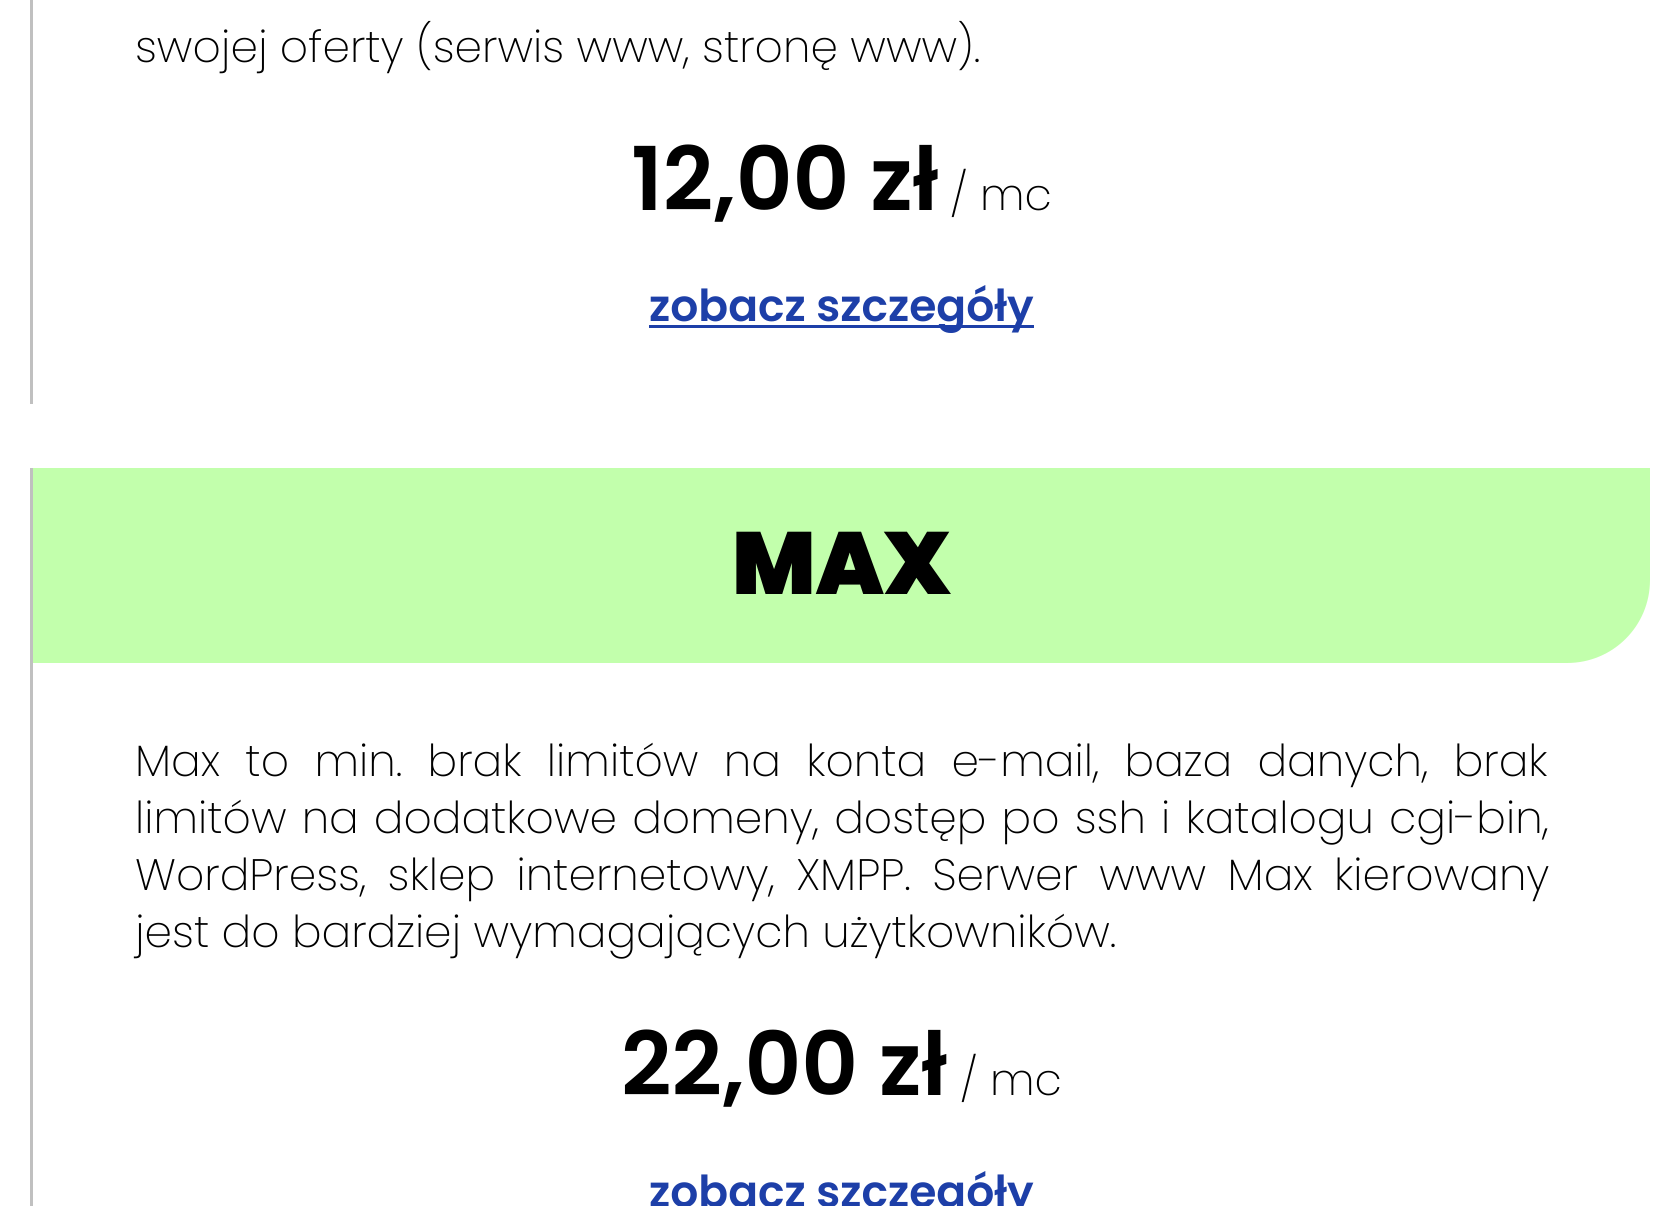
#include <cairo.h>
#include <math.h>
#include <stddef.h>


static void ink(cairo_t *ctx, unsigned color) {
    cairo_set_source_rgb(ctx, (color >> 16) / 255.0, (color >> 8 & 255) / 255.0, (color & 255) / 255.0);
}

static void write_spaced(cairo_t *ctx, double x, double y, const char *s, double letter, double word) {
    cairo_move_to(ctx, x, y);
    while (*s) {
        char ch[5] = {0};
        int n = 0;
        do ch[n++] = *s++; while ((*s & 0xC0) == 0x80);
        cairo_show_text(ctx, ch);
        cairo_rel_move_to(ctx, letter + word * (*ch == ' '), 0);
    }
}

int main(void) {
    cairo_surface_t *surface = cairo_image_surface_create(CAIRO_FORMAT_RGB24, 1680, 1206);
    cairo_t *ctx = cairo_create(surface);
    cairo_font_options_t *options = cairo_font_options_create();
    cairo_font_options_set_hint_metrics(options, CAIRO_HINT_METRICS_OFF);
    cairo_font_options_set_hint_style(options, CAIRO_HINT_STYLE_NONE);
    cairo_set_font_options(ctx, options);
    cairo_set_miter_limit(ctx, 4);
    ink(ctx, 0xFFFFFF);
    cairo_paint(ctx);
    ink(ctx, 0xC0C0C0);
    cairo_rectangle(ctx, 30, 0, 3, 404);
    cairo_fill(ctx);
    cairo_select_font_face(ctx, "Poppins ExtraLight", CAIRO_FONT_SLANT_NORMAL, CAIRO_FONT_WEIGHT_NORMAL);
    cairo_set_font_size(ctx, 44);
    ink(ctx, 0x000000);
    cairo_move_to(ctx, 135, 62);
    cairo_show_text(ctx, "swojej oferty (serwis www, stronę www).");
    cairo_select_font_face(ctx, "Poppins SemiBold", CAIRO_FONT_SLANT_NORMAL, CAIRO_FONT_WEIGHT_NORMAL);
    cairo_set_font_size(ctx, 88);
    cairo_move_to(ctx, 631, 210);
    cairo_show_text(ctx, "12,00 zł");
    cairo_select_font_face(ctx, "Poppins ExtraLight", CAIRO_FONT_SLANT_NORMAL, CAIRO_FONT_WEIGHT_NORMAL);
    cairo_set_font_size(ctx, 44);
    cairo_move_to(ctx, 950, 210);
    cairo_show_text(ctx, "/ mc");
    ink(ctx, 0x1D3FA8);
    cairo_rectangle(ctx, 649, 325, 385, 3);
    cairo_fill(ctx);
    cairo_select_font_face(ctx, "Poppins SemiBold", CAIRO_FONT_SLANT_NORMAL, CAIRO_FONT_WEIGHT_NORMAL);
    cairo_move_to(ctx, 649, 321);
    cairo_show_text(ctx, "zobacz szczegóły");
    ink(ctx, 0xC0C0C0);
    cairo_rectangle(ctx, 30, 468, 3, 738);
    cairo_fill(ctx);
    ink(ctx, 0xC2FFAC);
    cairo_new_path(ctx);
    cairo_move_to(ctx, 33, 468);
    cairo_line_to(ctx, 1650, 468);
    cairo_line_to(ctx, 1650, 580);
    cairo_curve_to(ctx, 1650, 626, 1613, 663, 1567, 663);
    cairo_line_to(ctx, 33, 663);
    cairo_close_path(ctx);
    cairo_fill(ctx);
    cairo_select_font_face(ctx, "Poppins Black", CAIRO_FONT_SLANT_NORMAL, CAIRO_FONT_WEIGHT_NORMAL);
    cairo_set_font_size(ctx, 88);
    ink(ctx, 0x000000);
    cairo_move_to(ctx, 732, 594);
    cairo_show_text(ctx, "MAX");
    cairo_select_font_face(ctx, "Poppins ExtraLight", CAIRO_FONT_SLANT_NORMAL, CAIRO_FONT_WEIGHT_NORMAL);
    cairo_set_font_size(ctx, 44);
    write_spaced(ctx, 135, 776, "Max to min. brak limitów na konta e-mail, baza danych, brak", 0, 13);
    write_spaced(ctx, 135, 833, "limitów na dodatkowe domeny, dostęp po ssh i katalogu cgi-bin,", 0, 2.75);
    write_spaced(ctx, 135, 890, "WordPress, sklep internetowy, XMPP. Serwer www Max kierowany", 0, 9);
    cairo_move_to(ctx, 135, 947);
    cairo_show_text(ctx, "jest do bardziej wymagających użytkowników.");
    cairo_select_font_face(ctx, "Poppins SemiBold", CAIRO_FONT_SLANT_NORMAL, CAIRO_FONT_WEIGHT_NORMAL);
    cairo_set_font_size(ctx, 88);
    cairo_move_to(ctx, 621, 1095);
    cairo_show_text(ctx, "22,00 zł");
    cairo_select_font_face(ctx, "Poppins ExtraLight", CAIRO_FONT_SLANT_NORMAL, CAIRO_FONT_WEIGHT_NORMAL);
    cairo_set_font_size(ctx, 44);
    cairo_move_to(ctx, 960, 1095);
    cairo_show_text(ctx, "/ mc");
    cairo_select_font_face(ctx, "Poppins SemiBold", CAIRO_FONT_SLANT_NORMAL, CAIRO_FONT_WEIGHT_NORMAL);
    ink(ctx, 0x1D3FA8);
    cairo_move_to(ctx, 649, 1207);
    cairo_show_text(ctx, "zobacz szczegóły");
    cairo_surface_write_to_png(surface, "image.png");
    cairo_font_options_destroy(options);
    cairo_destroy(ctx);
    cairo_surface_destroy(surface);
    return 0;
}
